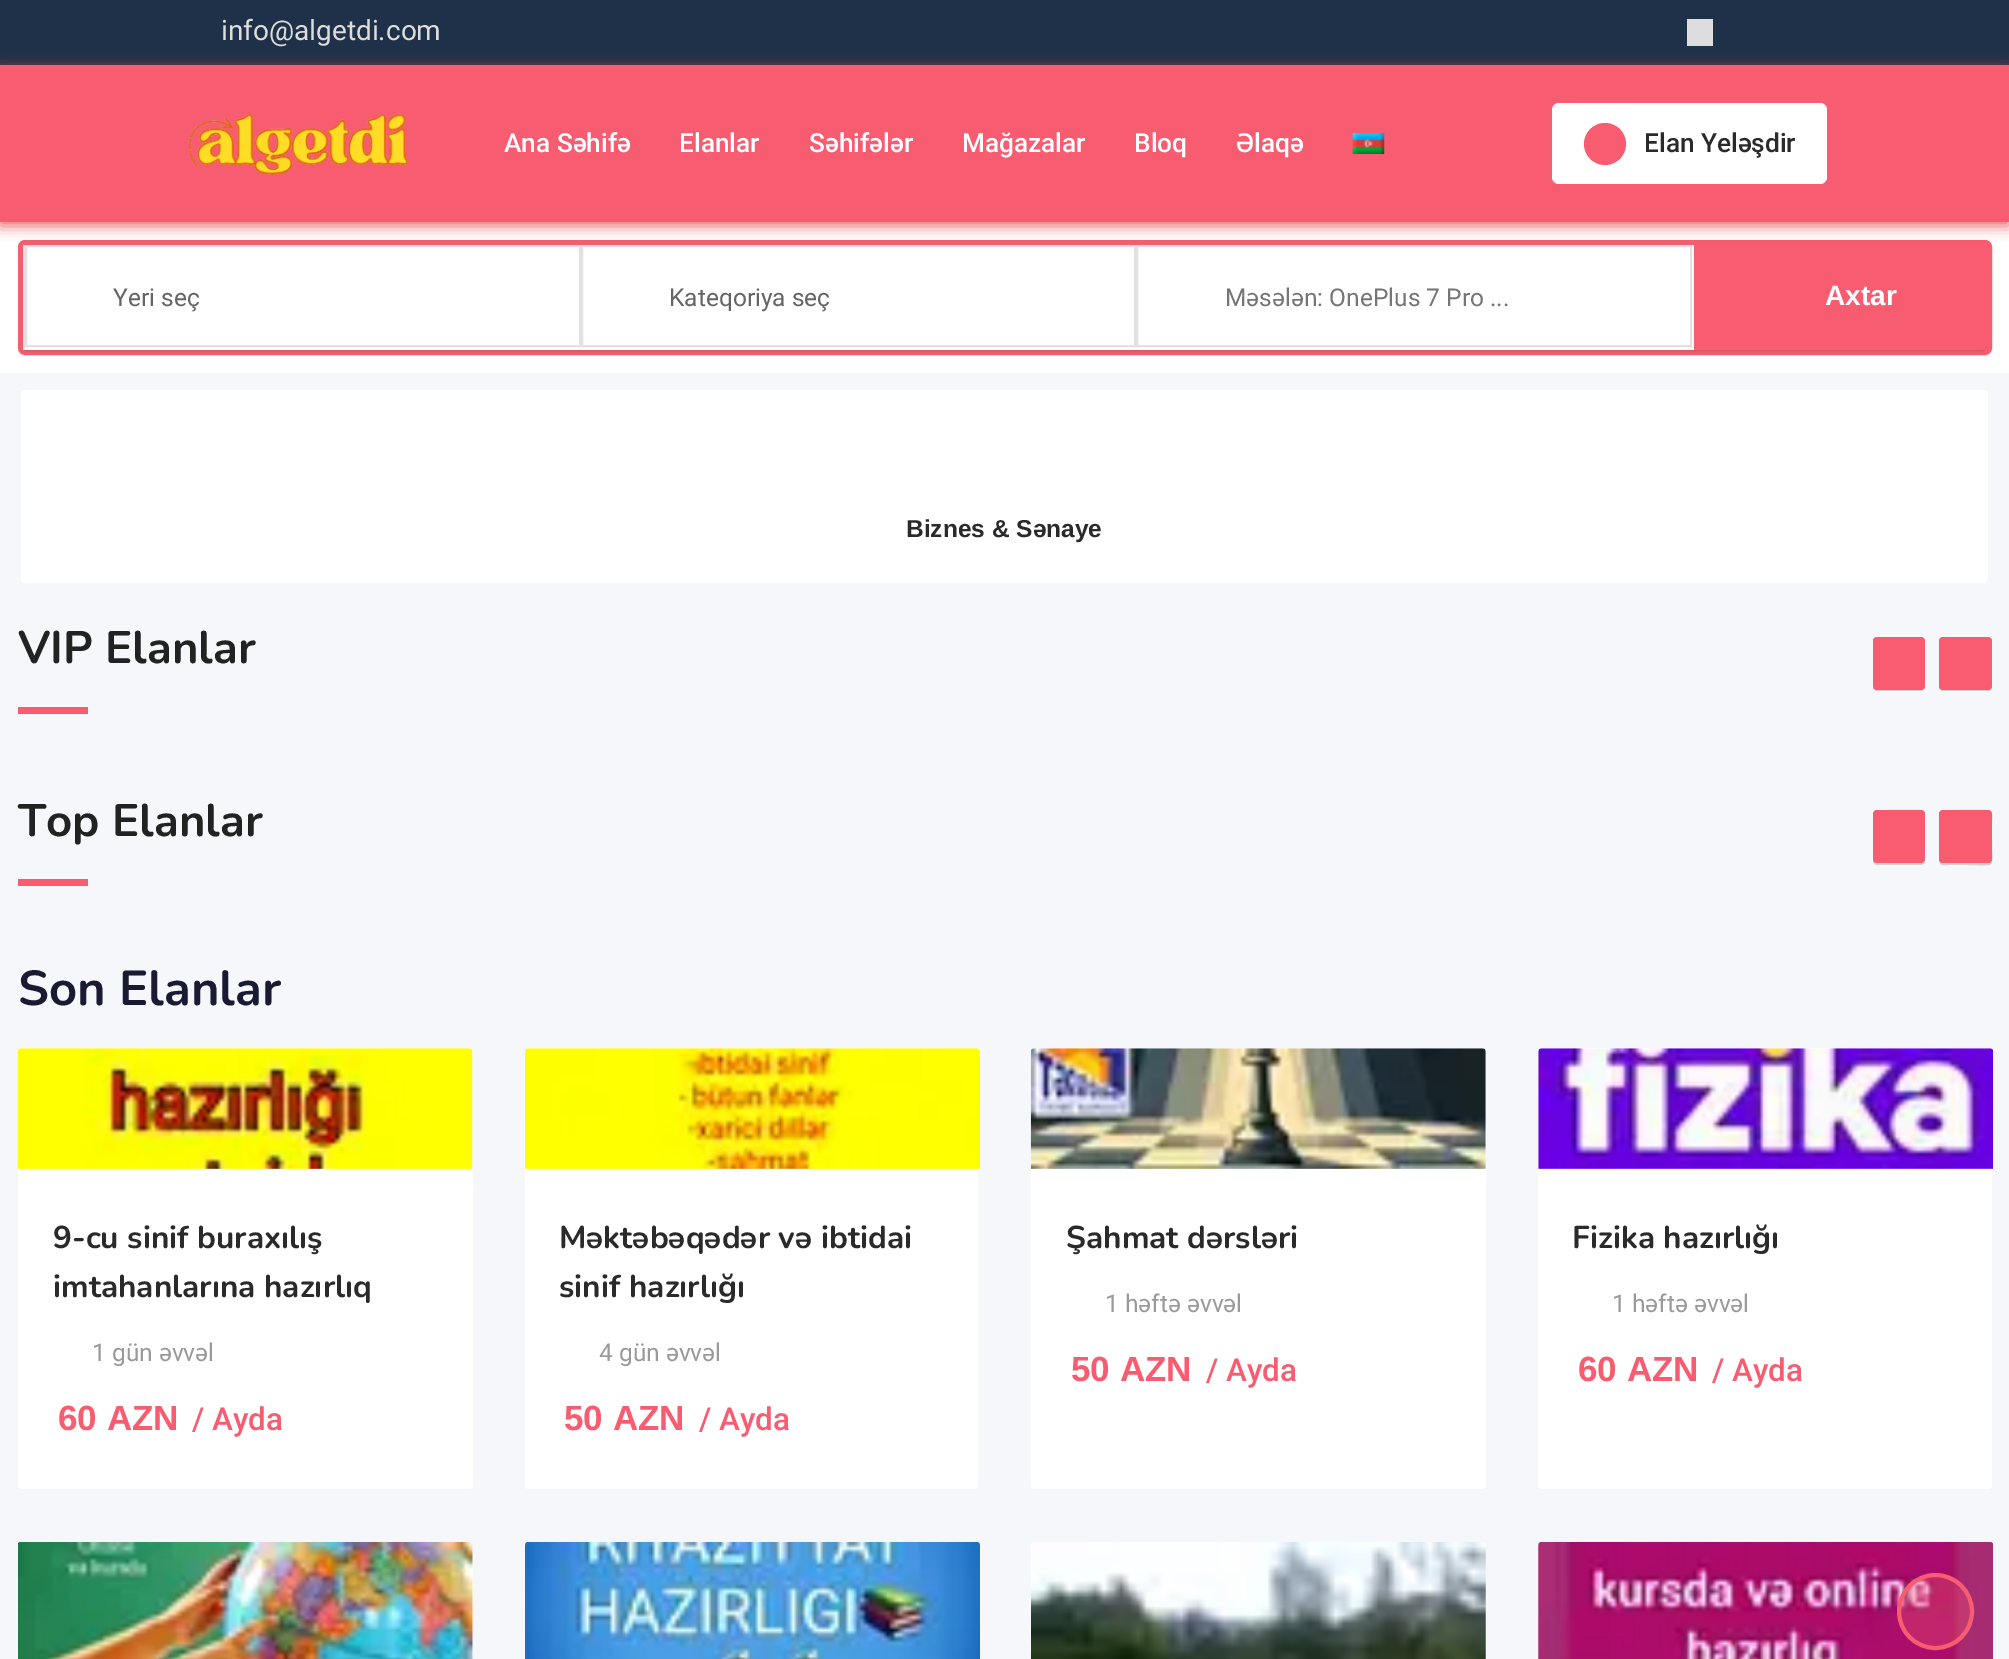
%!PS-Adobe-3.0
%%BoundingBox: 0 0 2009 1659
%%LanguageLevel: 3
%%Pages: 1
%%EndComments
%%BeginProlog
/setalpha { dup .setfillconstantalpha .setstrokeconstantalpha } def
/rrect { 5 dict begin { /r /h /w /y /x } { exch def } forall
  x r add y moveto x w add y 2 copy h add r arct x w add y h add x 1 index r arct
  x y h add x y r arct x y 2 copy exch w add exch r arct closepath end } def
/softshadow { 12 dict begin { /a /b /q /h /w /y /x } { exch def } forall gsave /was 0 def
  9 -2 -9 { dup b mul 4 div /e exch def 1 sub .425 mul 2.718 exch exp 1 add a .99 .min exch div /now exch def
    1 1 now sub 1 was sub div sub setalpha /was now def
    w h .min e 2 mul add 0 gt { x e sub y e sub w e 2 mul add h e 2 mul add
      q e add b .6 mul add w h .min 2 div e add .min 0 .max rrect fill } if } for grestore end } def
/drawimage { 5 dict begin { /h /w /y /x /name } { exch def } forall
  gsave x y translate w h scale
  w h 8 [w 0 0 h 0 0] name (r) file false 3 colorimage grestore end } def
%%EndProlog
%%BeginSetup
<< /PageSize [2009 1659] /PageUsesTransparency true >> setpagedevice
%%EndSetup
%%Page: 1 1
0 .pushpdf14devicefilter
0 1659 translate 1 -1 scale
4 setmiterlimit
0.118 0.192 0.282 setrgbcolor
0 0 2009 1659 rectfill
0.867 setgray
1687 19 26 27 rectfill
1 setgray
0 222 2009 151 rectfill
0.973 0.361 0.439 setrgbcolor
5 setlinewidth
20.5 242.5 1969 110 4.5 rrect stroke
0 setgray
23 247 1963 105 4 1 0.1 softshadow
1 setgray
23 245 1963 105 4 rrect fill
0.882 setgray
23 245 2 105 rectfill
2 setlinewidth
26 246 554 100 rectstroke
582 246 553 100 rectstroke
1137 246 554 100 rectstroke
0.973 0.361 0.439 setrgbcolor
1694 245 293 105 rectfill
0.894 0.239 0.251 setrgbcolor
0 68 2009 158 0 7 0.8 softshadow
0.973 0.361 0.439 setrgbcolor
0 65 2009 157 rectfill
(images/1.raw) 188 113 221 62 drawimage
(images/2.raw) 1352 133 33 21 drawimage
1 setgray
1552 103 275 81 7 rrect fill
0.973 0.361 0.439 setrgbcolor
newpath 1605 144 21 0 360 arc closepath fill
0.961 0.969 0.98 setrgbcolor
0 373 2009 1286 rectfill
1 setgray
21 390 1967 193 4 rrect fill
0.973 0.361 0.439 setrgbcolor
18 707 70 7 rectfill
0.808 0.812 0.824 setrgbcolor
newpath 1873 688 moveto 1874 690 1875 691 1877 691 curveto 1921 691 lineto 1923 691 1925 689 1925 687 curveto 1925 686 lineto 1925 688 1923 690 1922 690 curveto 1876 690 lineto 1875 690 1874 689 1873 688 curveto closepath fill
0.973 0.361 0.439 setrgbcolor
1873 637 52 53 4 rrect fill
0.808 0.812 0.824 setrgbcolor
newpath 1939 686 moveto 1939 687 lineto 1939 689 1941 691 1943 691 curveto 1988 691 lineto 1990 691 1992 689 1992 687 curveto 1992 643 lineto 1992 641 lineto 1992 686 lineto 1992 688 1990 690 1988 690 curveto 1942 690 lineto 1941 690 1939 688 1939 686 curveto closepath fill
0.973 0.361 0.439 setrgbcolor
1939 637 53 53 4 rrect fill
18 879 70 7 rectfill
0.808 0.812 0.824 setrgbcolor
newpath 1873 861 moveto 1873 863 1875 865 1877 865 curveto 1921 865 lineto 1923 865 1925 863 1925 861 curveto 1925 859 lineto 1925 861 1923 863 1922 863 curveto 1876 863 lineto 1875 863 1874 862 1873 861 curveto closepath fill
0.973 0.361 0.439 setrgbcolor
1873 810 52 53 4 rrect fill
0.808 0.812 0.824 setrgbcolor
newpath 1939 859 moveto 1939 867 1944 865 1950 865 curveto 1966 865 lineto 1998 865 1992 871 1992 838 curveto 1992 824 lineto 1992 823 1993 816 1992 814 curveto 1992 859 lineto 1992 861 1990 863 1988 863 curveto 1942 863 lineto 1941 863 1939 861 1939 859 curveto closepath fill
0.973 0.361 0.439 setrgbcolor
1939 810 53 53 4 rrect fill
1 setgray
18 1048 455 441 4 rrect fill
(images/3.raw) 17 1048 456 121 drawimage
525 1048 453 441 4 rrect fill
(images/4.raw) 525 1048 455 121 drawimage
1031 1048 455 441 4 rrect fill
(images/5.raw) 1030 1048 456 121 drawimage
1538 1048 454 441 4 rrect fill
(images/6.raw) 1538 1048 455 121 drawimage
18 1542 455 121 4 rrect fill
(images/7.raw) 18 1542 455 117 drawimage
(images/8.raw) 525 1542 455 117 drawimage
(images/9.raw) 1031 1542 455 117 drawimage
(images/10.raw) 1538 1542 455 117 drawimage
0.3 setalpha
0.973 0.361 0.439 setrgbcolor
newpath 1935.5 1611.5 36.5 0 360 arc closepath fill
1 setalpha
4 setlinewidth
newpath 1935.5 1611.5 36.5 0 360 arc closepath stroke
/Roboto-Regular [28 0 0 -28 0 0] selectfont
0.867 setgray
221 40 moveto (info@algetdi.com) show
/Roboto-Medium [26.25 0 0 -26.25 0 0] selectfont
1 setgray
504 152 moveto (Ana Səhifə) show
679 152 moveto (Elanlar) show
809 152 moveto (Səhifələr) show
962 152 moveto (Mağazalar) show
1134 152 moveto (Bloq) show
1236 152 moveto (Əlaqə) show
0.165 setgray
1644 152 moveto (Elan Yeləşdir) show
/Roboto-Regular [24.5 0 0 -24.5 0 0] selectfont
0.392 setgray
113 306 moveto (Yeri seç) show
669 306 moveto (Kateqoriya seç) show
0.459 setgray
1225 306 moveto (Məsələn: OnePlus 7 Pro ...) show
/LiberationSans-Bold [28 0 0 -28 0 0] selectfont
1 setgray
1825 305 moveto (Axtar) show
/LiberationSans-Bold [24.5 0 0 -24.5 0 0] selectfont
0.165 setgray
906 537 moveto (Biznes & Sənaye) show
/Nunito-ExtraLight [45.5 0 0 -45.5 0 0] selectfont
0.133 setgray
18 663 moveto (VIP Elanlar) show
18 836 moveto (Top Elanlar) show
/Nunito-ExtraLight [49 0 0 -49 0 0] selectfont
0.094 0.106 0.192 setrgbcolor
18 1005 moveto (Son Elanlar) show
/Nunito-ExtraLight [31.5 0 0 -31.5 0 0] selectfont
0.165 setgray
53 1248 moveto (9-cu sinif buraxılış) show
53 1297 moveto (imtahanlarına hazırlıq) show
/Roboto-Regular [24.5 0 0 -24.5 0 0] selectfont
0.6 setgray
92 1361 moveto (1 gün əvvəl) show
/LiberationSans-Bold [35 0 0 -35 0 0] selectfont
0.973 0.361 0.439 setrgbcolor
58 1430 moveto (60 AZN) show
/Roboto-Medium [31.5 0 0 -31.5 0 0] selectfont
192 1430 moveto (/ Ayda) show
/Nunito-ExtraLight [31.5 0 0 -31.5 0 0] selectfont
0.165 setgray
559 1248 moveto (Məktəbəqədər və ibtidai) show
559 1297 moveto (sinif hazırlığı) show
/Roboto-Regular [24.5 0 0 -24.5 0 0] selectfont
0.6 setgray
599 1361 moveto (4 gün əvvəl) show
/LiberationSans-Bold [35 0 0 -35 0 0] selectfont
0.973 0.361 0.439 setrgbcolor
564 1430 moveto (50 AZN) show
/Roboto-Medium [31.5 0 0 -31.5 0 0] selectfont
699 1430 moveto (/ Ayda) show
/Nunito-ExtraLight [31.5 0 0 -31.5 0 0] selectfont
0.165 setgray
1066 1248 moveto (Şahmat dərsləri) show
/Roboto-Regular [24.5 0 0 -24.5 0 0] selectfont
0.6 setgray
1105 1312 moveto (1 həftə əvvəl) show
/LiberationSans-Bold [35 0 0 -35 0 0] selectfont
0.973 0.361 0.439 setrgbcolor
1071 1381 moveto (50 AZN) show
/Roboto-Medium [31.5 0 0 -31.5 0 0] selectfont
1206 1381 moveto (/ Ayda) show
/Nunito-ExtraLight [31.5 0 0 -31.5 0 0] selectfont
0.165 setgray
1572 1248 moveto (Fizika hazırlığı) show
/Roboto-Regular [24.5 0 0 -24.5 0 0] selectfont
0.6 setgray
1612 1312 moveto (1 həftə əvvəl) show
/LiberationSans-Bold [35 0 0 -35 0 0] selectfont
0.973 0.361 0.439 setrgbcolor
1578 1381 moveto (60 AZN) show
/Roboto-Medium [31.5 0 0 -31.5 0 0] selectfont
1712 1381 moveto (/ Ayda) show
.poppdf14devicefilter showpage
%%EOF
